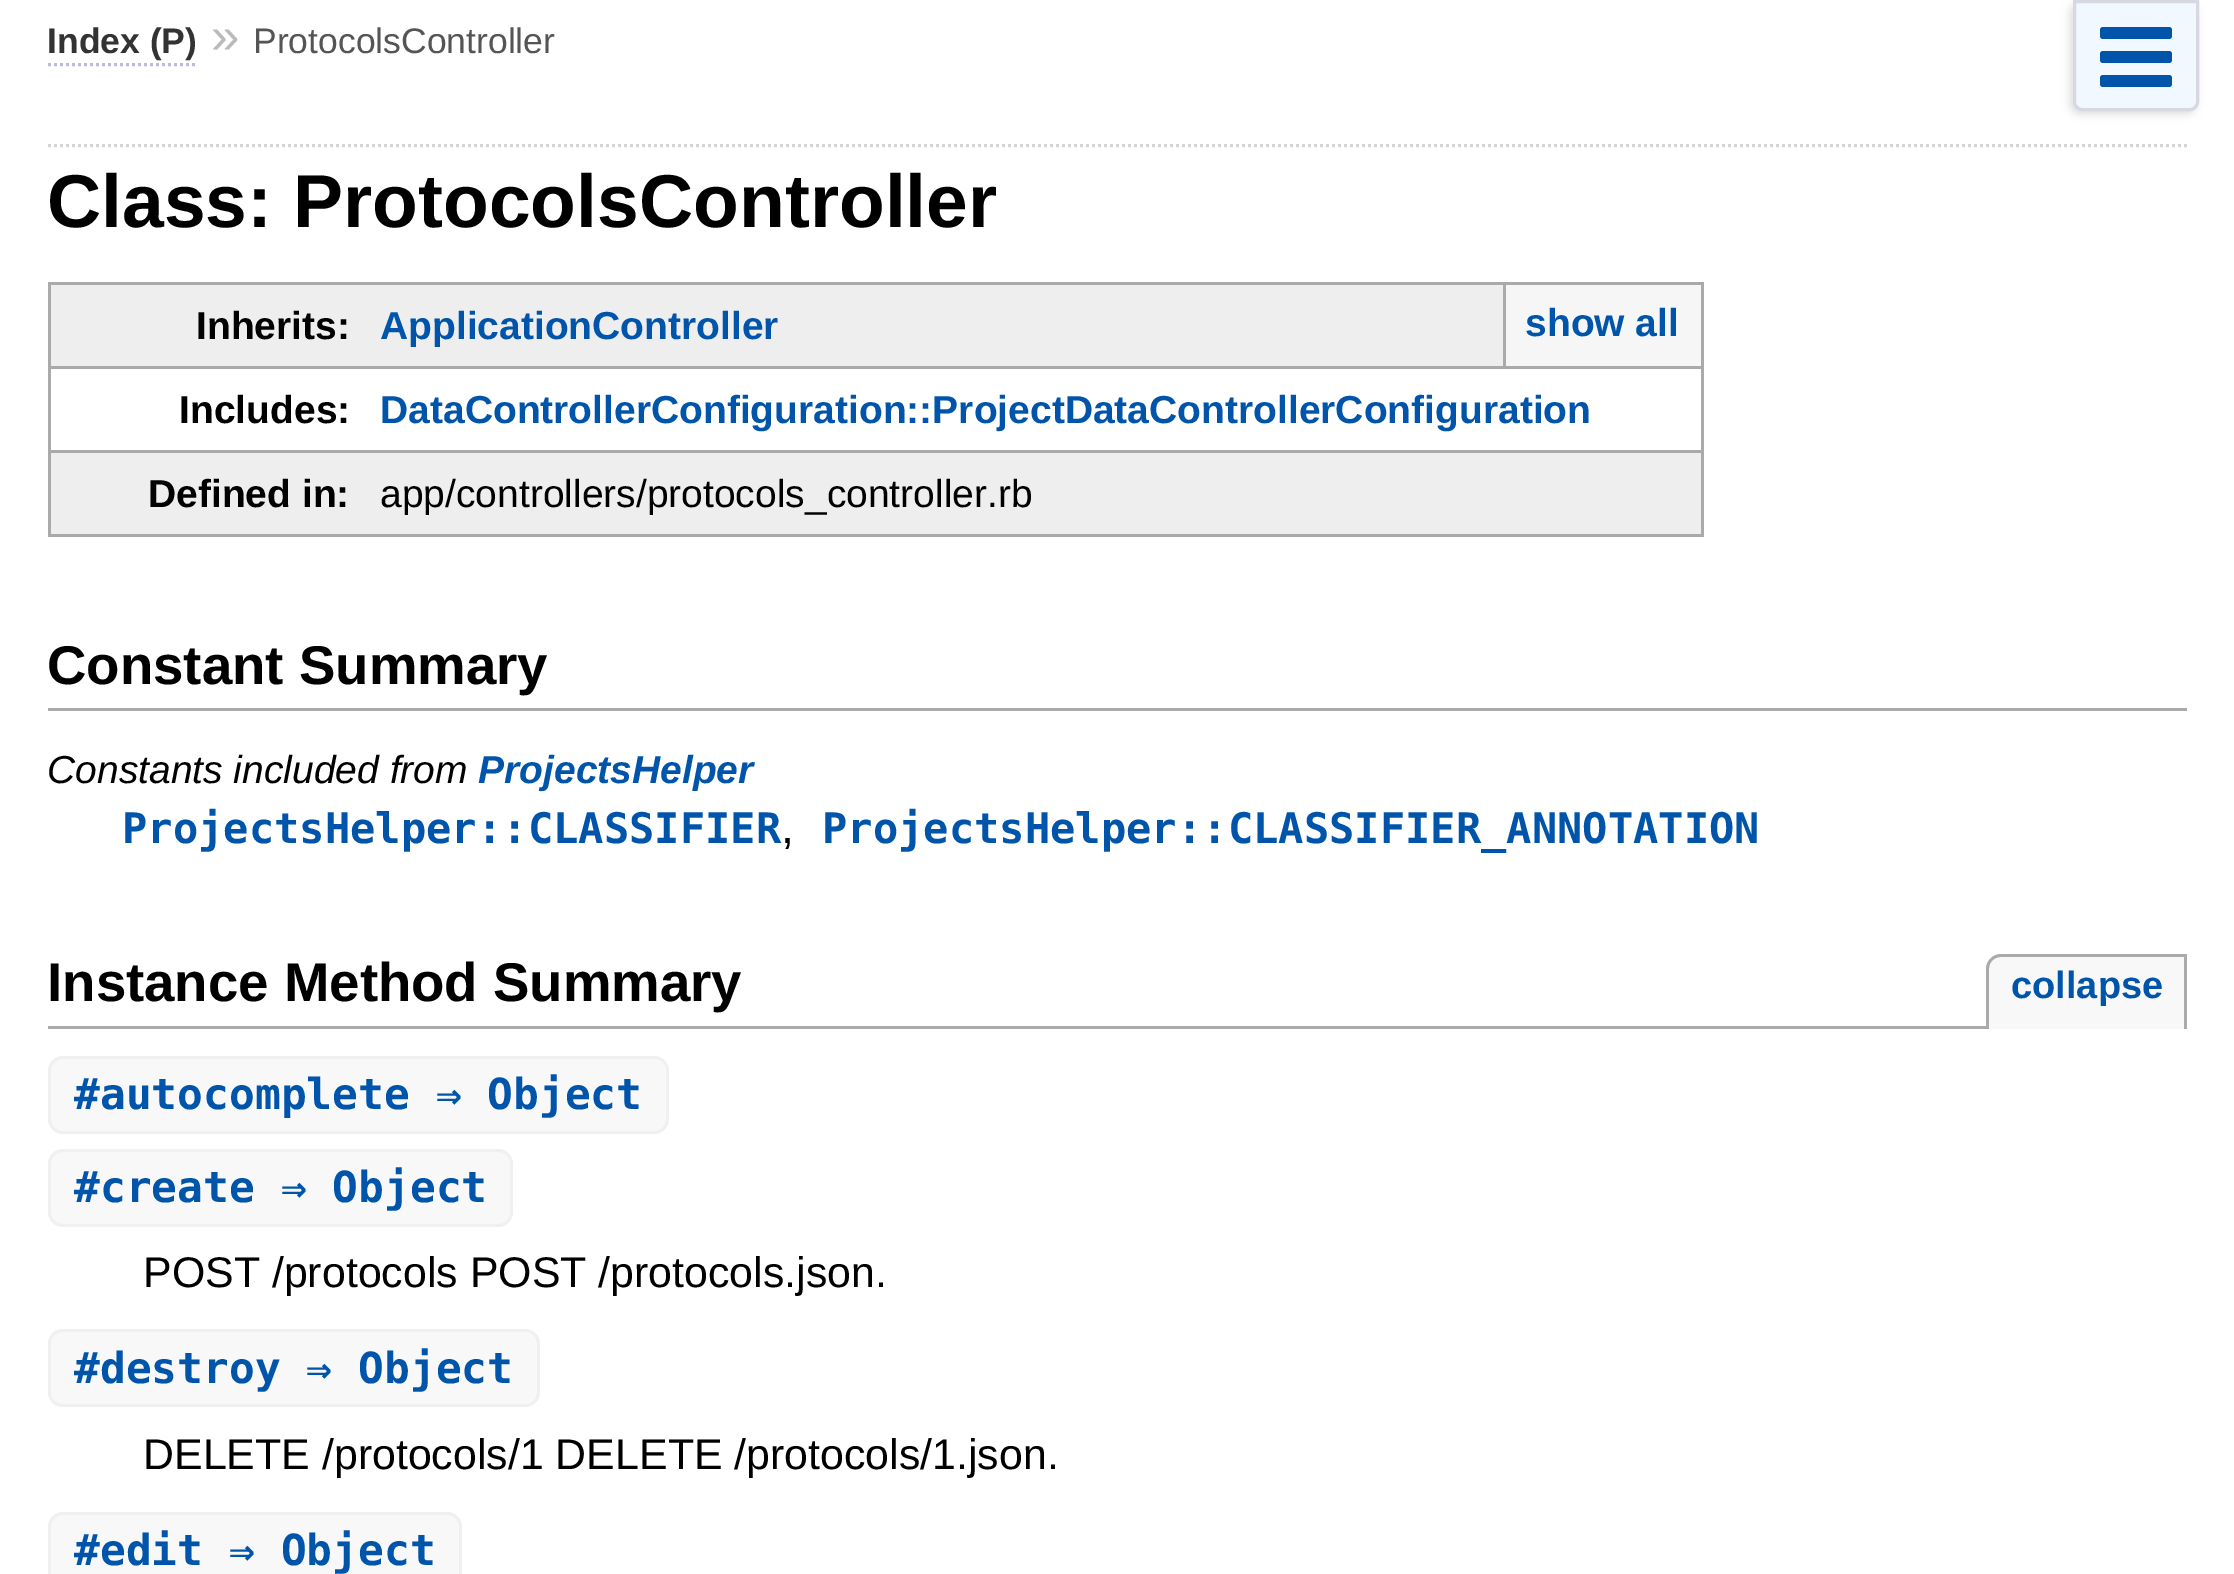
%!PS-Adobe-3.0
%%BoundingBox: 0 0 2234 1574
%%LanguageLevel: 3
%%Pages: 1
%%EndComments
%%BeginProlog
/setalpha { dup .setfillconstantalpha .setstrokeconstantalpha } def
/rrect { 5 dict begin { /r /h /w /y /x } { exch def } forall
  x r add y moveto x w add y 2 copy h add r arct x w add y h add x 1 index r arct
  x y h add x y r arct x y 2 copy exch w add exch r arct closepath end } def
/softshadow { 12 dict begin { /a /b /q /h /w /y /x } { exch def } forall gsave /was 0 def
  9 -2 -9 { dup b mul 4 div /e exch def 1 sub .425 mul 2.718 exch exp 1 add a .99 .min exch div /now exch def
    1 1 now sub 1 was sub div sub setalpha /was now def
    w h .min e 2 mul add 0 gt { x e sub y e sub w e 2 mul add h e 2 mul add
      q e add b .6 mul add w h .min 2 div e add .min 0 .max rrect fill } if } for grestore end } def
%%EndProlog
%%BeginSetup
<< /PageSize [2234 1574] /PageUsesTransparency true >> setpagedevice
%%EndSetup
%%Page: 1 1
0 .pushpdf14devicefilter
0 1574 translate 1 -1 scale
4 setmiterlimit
1 setgray
0 0 2234 1574 rectfill
0.733 0.733 0.867 setrgbcolor
3 setlinewidth
[3 3] 0 setdash
newpath 48 64.5 moveto 198 64.5 lineto stroke
0.867 setgray
2070 3 126 111 9 4.5 1 softshadow
0.945 0.973 1 setrgbcolor
newpath 2074.5 1.5 moveto 2197.5 1.5 lineto 2197.5 102 lineto 2197.5 106 2194 109.5 2190 109.5 curveto 2082 109.5 lineto 2078 109.5 2074.5 106 2074.5 102 curveto closepath gsave fill grestore
0.847 0.847 0.898 setrgbcolor
[] 0 setdash
stroke
0 0.333 0.667 setrgbcolor
2100 27 72 12 3 rrect fill
2100 51 72 12 3 rrect fill
2100 75 72 12 3 rrect fill
0.835 setgray
[3 3] 0 setdash
newpath 48 145.5 moveto 2187 145.5 lineto stroke
0.933 setgray
51 285 1452 81 rectfill
0.667 setgray
48 282 1656 3 rectfill
48 282 3 84 rectfill
48 366 1656 3 rectfill
48 450 1656 3 rectfill
1701 282 3 255 rectfill
0.965 setgray
1506 285 195 81 rectfill
0.667 setgray
1503 285 3 81 rectfill
48 366 3 84 rectfill
0.933 setgray
51 453 1650 81 rectfill
0.667 setgray
48 534 333 3 rectfill
48 450 3 87 rectfill
381 534 1323 3 rectfill
48 708 2139 3 rectfill
48 1026 1938 3 rectfill
0.973 setgray
newpath 2001 954 moveto 2187 954 lineto 2187 1029 lineto 1986 1029 lineto 1986 969 lineto 1986 960.5 1992.5 954 2001 954 curveto closepath fill
0.667 setgray
newpath 2001 954 moveto 2187 954 lineto 2187 1029 lineto 1986 1029 lineto 1986 969 lineto 1986 961 1993 954 2001 954 curveto closepath 2001 957 moveto 2184 957 lineto 2184 1029 lineto 1989 1029 lineto 1989 969 lineto 1989 962 1994 957 2001 957 curveto closepath eofill
0.973 setgray
newpath 63 1056 moveto 99 1056 lineto 99 1134 lineto 63 1134 lineto 54.5 1134 48 1127.5 48 1119 curveto 48 1071 lineto 48 1062.5 54.5 1056 63 1056 curveto closepath fill
0.941 setgray
newpath 63 1056 moveto 99 1056 lineto 99 1134 lineto 63 1134 lineto 55 1134 48 1127 48 1119 curveto 48 1071 lineto 48 1063 55 1056 63 1056 curveto closepath 63 1059 moveto 99 1059 lineto 99 1131 lineto 63 1131 lineto 56 1131 51 1126 51 1119 curveto 51 1071 lineto 51 1064 56 1059 63 1059 curveto closepath eofill
0.973 setgray
99 1059 312 72 rectfill
0.941 setgray
99 1056 312 3 rectfill
99 1131 312 3 rectfill
0.973 setgray
newpath 411 1056 moveto 654 1056 lineto 662.5 1056 669 1062.5 669 1071 curveto 669 1119 lineto 669 1127.5 662.5 1134 654 1134 curveto 411 1134 lineto closepath fill
0.941 setgray
newpath 411 1056 moveto 654 1056 lineto 662 1056 669 1063 669 1071 curveto 669 1119 lineto 669 1127 662 1134 654 1134 curveto 411 1134 lineto closepath 411 1059 moveto 654 1059 lineto 661 1059 666 1064 666 1071 curveto 666 1119 lineto 666 1126 661 1131 654 1131 curveto 411 1131 lineto closepath eofill
0.973 setgray
newpath 63 1149 moveto 99 1149 lineto 99 1227 lineto 63 1227 lineto 54.5 1227 48 1220.5 48 1212 curveto 48 1164 lineto 48 1155.5 54.5 1149 63 1149 curveto closepath fill
0.941 setgray
newpath 63 1149 moveto 99 1149 lineto 99 1227 lineto 63 1227 lineto 55 1227 48 1220 48 1212 curveto 48 1164 lineto 48 1156 55 1149 63 1149 curveto closepath 63 1152 moveto 99 1152 lineto 99 1224 lineto 63 1224 lineto 56 1224 51 1219 51 1212 curveto 51 1164 lineto 51 1157 56 1152 63 1152 curveto closepath eofill
0.973 setgray
99 1152 156 72 rectfill
0.941 setgray
99 1149 156 3 rectfill
99 1224 156 3 rectfill
0.973 setgray
newpath 255 1149 moveto 498 1149 lineto 506.5 1149 513 1155.5 513 1164 curveto 513 1212 lineto 513 1220.5 506.5 1227 498 1227 curveto 255 1227 lineto closepath fill
0.941 setgray
newpath 255 1149 moveto 498 1149 lineto 506 1149 513 1156 513 1164 curveto 513 1212 lineto 513 1220 506 1227 498 1227 curveto 255 1227 lineto closepath 255 1152 moveto 498 1152 lineto 505 1152 510 1157 510 1164 curveto 510 1212 lineto 510 1219 505 1224 498 1224 curveto 255 1224 lineto closepath eofill
0.973 setgray
newpath 63 1329 moveto 99 1329 lineto 99 1407 lineto 63 1407 lineto 54.5 1407 48 1400.5 48 1392 curveto 48 1344 lineto 48 1335.5 54.5 1329 63 1329 curveto closepath fill
0.941 setgray
newpath 63 1329 moveto 99 1329 lineto 99 1407 lineto 63 1407 lineto 55 1407 48 1400 48 1392 curveto 48 1344 lineto 48 1336 55 1329 63 1329 curveto closepath 63 1332 moveto 99 1332 lineto 99 1404 lineto 63 1404 lineto 56 1404 51 1399 51 1392 curveto 51 1344 lineto 51 1337 56 1332 63 1332 curveto closepath eofill
0.973 setgray
99 1332 180 72 rectfill
0.941 setgray
99 1329 180 3 rectfill
99 1404 180 3 rectfill
0.973 setgray
newpath 279 1329 moveto 525 1329 lineto 533.5 1329 540 1335.5 540 1344 curveto 540 1392 lineto 540 1400.5 533.5 1407 525 1407 curveto 279 1407 lineto closepath fill
0.941 setgray
newpath 279 1329 moveto 525 1329 lineto 533 1329 540 1336 540 1344 curveto 540 1392 lineto 540 1400 533 1407 525 1407 curveto 279 1407 lineto closepath 279 1332 moveto 525 1332 lineto 532 1332 537 1337 537 1344 curveto 537 1392 lineto 537 1399 532 1404 525 1404 curveto 279 1404 lineto closepath eofill
0.973 setgray
newpath 63 1512 moveto 99 1512 lineto 99 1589 lineto 63 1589 lineto 54.5 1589 48 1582.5 48 1574 curveto 48 1527 lineto 48 1518.5 54.5 1512 63 1512 curveto closepath fill
0.941 setgray
newpath 63 1512 moveto 99 1512 lineto 99 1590 lineto 63 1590 lineto 55 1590 48 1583 48 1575 curveto 48 1527 lineto 48 1519 55 1512 63 1512 curveto closepath 63 1515 moveto 99 1515 lineto 99 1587 lineto 63 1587 lineto 56 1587 51 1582 51 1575 curveto 51 1527 lineto 51 1520 56 1515 63 1515 curveto closepath eofill
0.973 setgray
99 1515 105 59 rectfill
0.941 setgray
99 1512 105 3 rectfill
0.973 setgray
newpath 204 1512 moveto 447 1512 lineto 455.5 1512 462 1518.5 462 1527 curveto 462 1574 lineto 462 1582.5 455.5 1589 447 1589 curveto 204 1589 lineto closepath fill
0.941 setgray
newpath 204 1512 moveto 447 1512 lineto 455 1512 462 1519 462 1527 curveto 462 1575 lineto 462 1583 455 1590 447 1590 curveto 204 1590 lineto closepath 204 1515 moveto 447 1515 lineto 454 1515 459 1520 459 1527 curveto 459 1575 lineto 459 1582 454 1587 447 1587 curveto 204 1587 lineto closepath eofill
/LiberationSans-Bold [35.5 0 0 -35.5 0 0] selectfont
0.2 setgray
47 53 moveto (Index \(P\)) show
/LiberationSans-Regular [51 0 0 -51 0 0] selectfont
0.733 setgray
211 53 moveto (») show
/LiberationSans-Regular [35.5 0 0 -35.5 0 0] selectfont
0.333 setgray
253 53 moveto (ProtocolsController) show
/LiberationSans-Bold [75 0 0 -75 0 0] selectfont
0 setgray
47 227 moveto (Class: ProtocolsController) show
/LiberationSans-Bold [39 0 0 -39 0 0] selectfont
196 339 moveto (Inherits:) show
0 0.333 0.667 setrgbcolor
380 339 moveto (ApplicationController) show
1525 336 moveto (show all) show
0 setgray
179 423 moveto (Includes:) show
0 0.333 0.667 setrgbcolor
380 423 moveto (DataControllerConfiguration::ProjectDataControllerConfiguration) show
0 setgray
148 507 moveto (Defined in:) show
/LiberationSans-Regular [39 0 0 -39 0 0] selectfont
380 507 moveto (app/controllers/protocols_controller.rb) show
/LiberationSans-Bold [54.6 0 0 -54.6 0 0] selectfont
47 684 moveto (Constant Summary) show
/LiberationSans-Italic [39 0 0 -39 0 0] selectfont
47 783 moveto (Constants included from) show
/LiberationSans-BoldItalic [39 0 0 -39 0 0] selectfont
0 0.333 0.667 setrgbcolor
478 783 moveto (ProjectsHelper) show
/DejaVuSansMono-Bold [42.1 0 0 -42.1 0 0] selectfont
122 843 moveto (ProjectsHelper::CLASSIFIER) show
/LiberationSans-Regular [47 0 0 -47 0 0] selectfont
0 setgray
781 843 moveto (,) show
/DejaVuSansMono-Bold [42.1 0 0 -42.1 0 0] selectfont
0 0.333 0.667 setrgbcolor
822 843 moveto (ProjectsHelper::CLASSIFIER_ANNOTATION) show
/LiberationSans-Bold [54.6 0 0 -54.6 0 0] selectfont
0 setgray
47 1001 moveto (Instance Method Summary) show
/LiberationSans-Bold [38 0 0 -38 0 0] selectfont
0 0.333 0.667 setrgbcolor
2011 998 moveto (collapse) show
/DejaVuSansMono-Bold [42.9 0 0 -42.9 0 0] selectfont
74 1109 moveto (#autocomplete ⇒ Object) show
74 1202 moveto (#create ⇒ Object) show
/LiberationSans-Regular [42.9 0 0 -42.9 0 0] selectfont
0 setgray
143 1287 moveto (POST /protocols POST /protocols.json.) show
/DejaVuSansMono-Bold [42.9 0 0 -42.9 0 0] selectfont
0 0.333 0.667 setrgbcolor
74 1383 moveto (#destroy ⇒ Object) show
/LiberationSans-Regular [42.9 0 0 -42.9 0 0] selectfont
0 setgray
143 1469 moveto (DELETE /protocols/1 DELETE /protocols/1.json.) show
/DejaVuSansMono-Bold [42.9 0 0 -42.9 0 0] selectfont
0 0.333 0.667 setrgbcolor
74 1565 moveto (#edit ⇒ Object) show
.poppdf14devicefilter showpage
%%EOF
